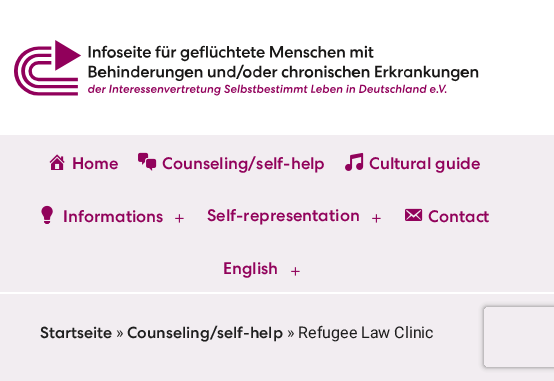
%!PS-Adobe-3.0
%%BoundingBox: 0 0 554 381
%%LanguageLevel: 3
%%Pages: 1
%%EndComments
%%BeginProlog
/setalpha { dup .setfillconstantalpha .setstrokeconstantalpha } def
/rrect { 5 dict begin { /r /h /w /y /x } { exch def } forall
  x r add y moveto x w add y 2 copy h add r arct x w add y h add x 1 index r arct
  x y h add x y r arct x y 2 copy exch w add exch r arct closepath end } def
/softshadow { 12 dict begin { /a /b /q /h /w /y /x } { exch def } forall gsave /was 0 def
  9 -2 -9 { dup b mul 4 div /e exch def 1 sub .425 mul 2.718 exch exp 1 add a .99 .min exch div /now exch def
    1 1 now sub 1 was sub div sub setalpha /was now def
    w h .min e 2 mul add 0 gt { x e sub y e sub w e 2 mul add h e 2 mul add
      q e add b .6 mul add w h .min 2 div e add .min 0 .max rrect fill } if } for grestore end } def
/drawimage { 5 dict begin { /h /w /y /x /name } { exch def } forall
  gsave x y translate w h scale
  w h 8 [w 0 0 h 0 0] name (r) file false 3 colorimage grestore end } def
%%EndProlog
%%BeginSetup
<< /PageSize [554 381] /PageUsesTransparency true >> setpagedevice
%%EndSetup
%%Page: 1 1
0 .pushpdf14devicefilter
0 381 translate 1 -1 scale
4 setmiterlimit
0.949 0.929 0.945 setrgbcolor
0 0 554 381 rectfill
1 setgray
0 0 554 135 rectfill
(images/1.raw) 14 40 465 56 drawimage
0 292 554 2 rectfill
(images/2.raw) 49 154 16 16 drawimage
(images/3.raw) 138 152 19 19 drawimage
(images/4.raw) 345 152 19 19 drawimage
(images/5.raw) 41 205 12 19 drawimage
(images/6.raw) 175 214 9 9 drawimage
(images/6.raw) 372 214 9 9 drawimage
(images/7.raw) 405 208 18 13 drawimage
(images/6.raw) 291 267 9 9 drawimage
gsave
newpath 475 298 moveto 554 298 lineto 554 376 lineto 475 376 lineto closepath 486 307 moveto 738 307 lineto 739 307 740 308 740 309 curveto 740 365 lineto 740 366 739 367 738 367 curveto 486 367 lineto 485 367 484 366 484 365 curveto 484 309 lineto 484 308 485 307 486 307 curveto closepath eoclip newpath
0.502 setgray
484 307 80 60 2 2.5 1 softshadow
grestore
/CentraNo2-Medium [16.75 0 0 -16.75 0 0] selectfont
0.569 0.008 0.357 setrgbcolor
72 169 moveto (Home) show
162 169 moveto (Counseling/self-help) show
369 169 moveto (Cultural guide) show
63 222 moveto (Informations) show
207 221 moveto (Self-representation) show
428 222 moveto (Contact) show
223 274 moveto (English) show
/CentraNo2-Medium [16 0 0 -16 0 0] selectfont
0.118 setgray
40 338 moveto (Startseite) show
/Roboto-Regular [16 0 0 -16 0 0] selectfont
116 338 moveto (») show
/CentraNo2-Medium [16 0 0 -16 0 0] selectfont
127 338 moveto (Counseling/self-help) show
/Roboto-Regular [16 0 0 -16 0 0] selectfont
287 338 moveto (» Refugee Law Clinic) show
.poppdf14devicefilter showpage
%%EOF
